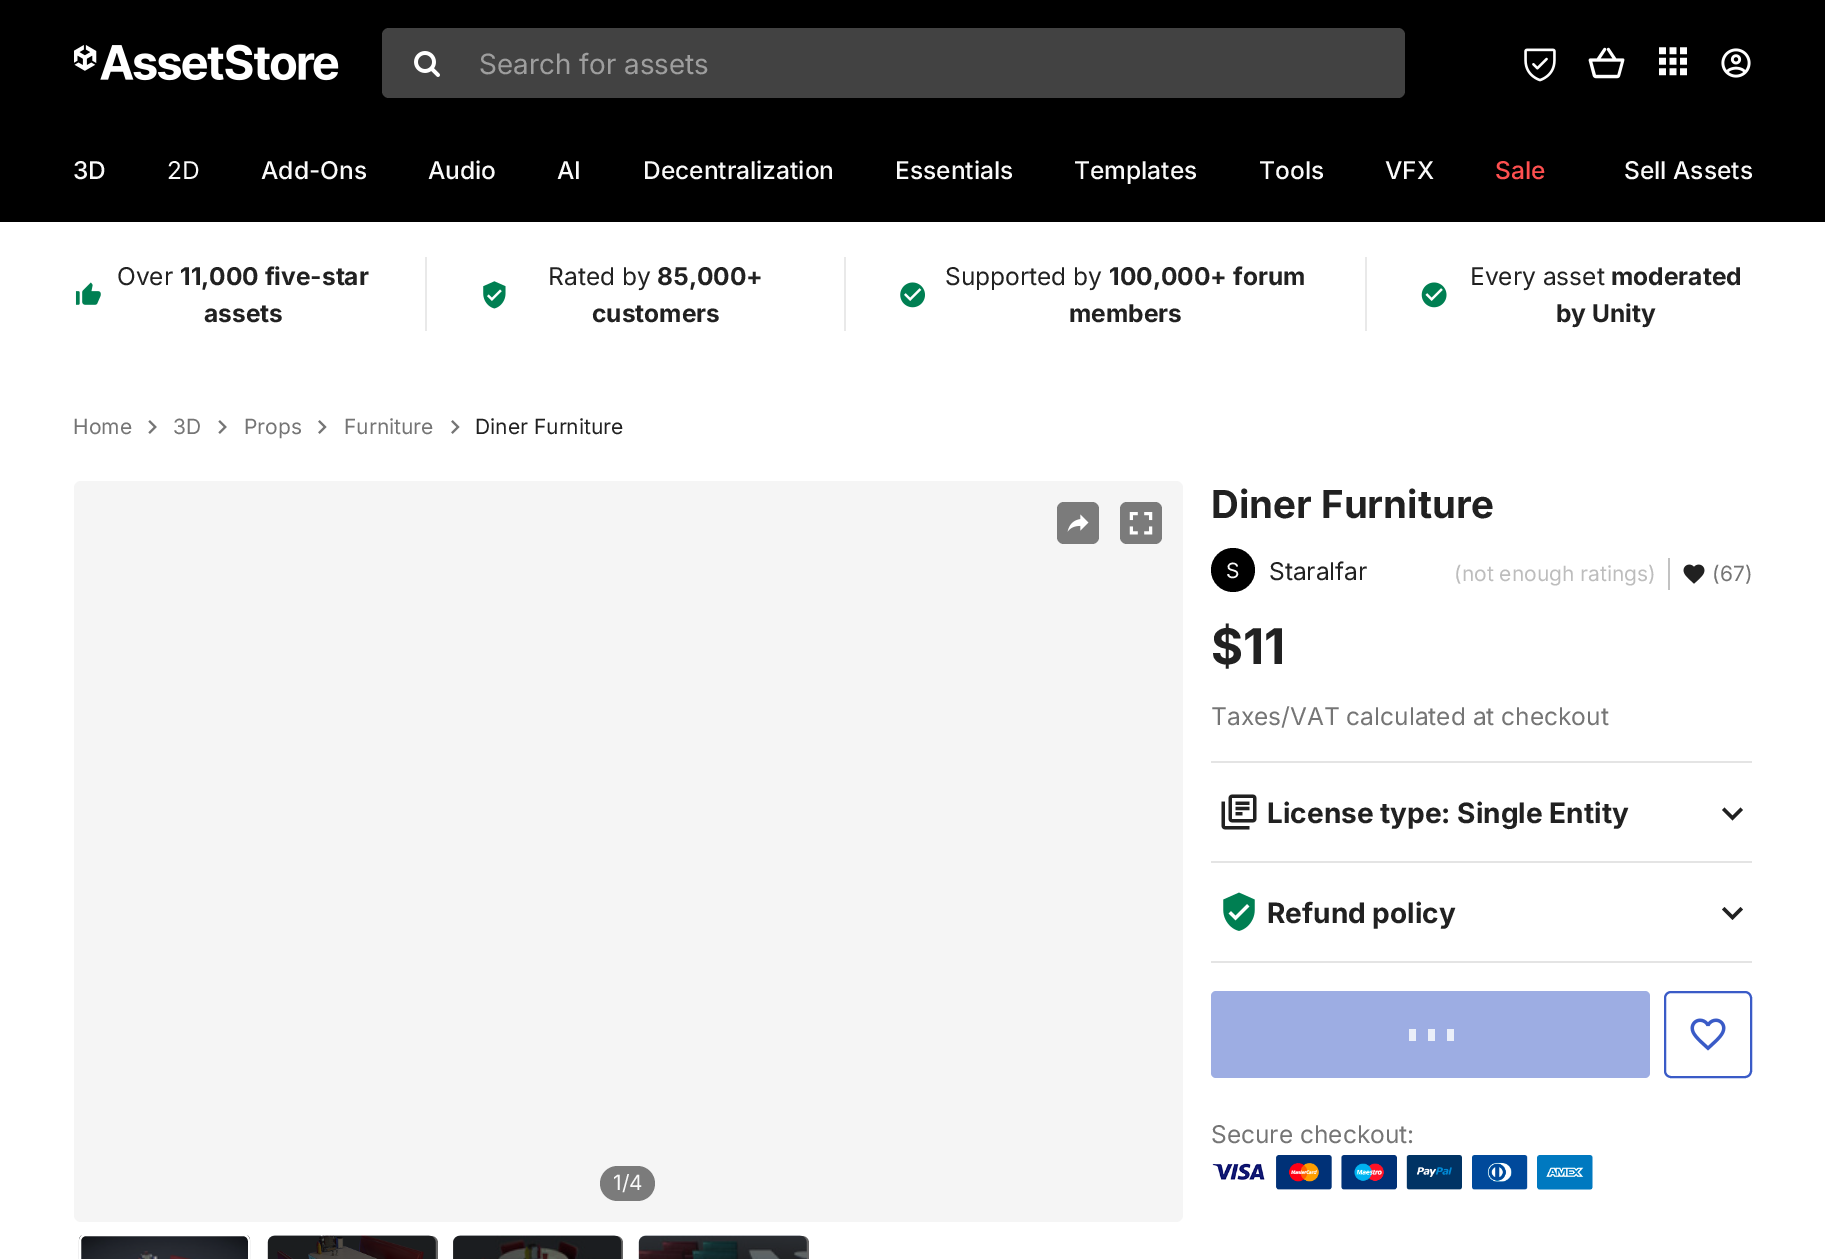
%!PS-Adobe-3.0
%%BoundingBox: 0 0 1825 1259
%%LanguageLevel: 3
%%Pages: 1
%%EndComments
%%BeginProlog
/setalpha { dup .setfillconstantalpha .setstrokeconstantalpha } def
/rrect { 5 dict begin { /r /h /w /y /x } { exch def } forall
  x r add y moveto x w add y 2 copy h add r arct x w add y h add x 1 index r arct
  x y h add x y r arct x y 2 copy exch w add exch r arct closepath end } def
/drawimage { 5 dict begin { /h /w /y /x /name } { exch def } forall
  gsave x y translate w h scale
  w h 8 [w 0 0 h 0 0] name (r) file false 3 colorimage grestore end } def
%%EndProlog
%%BeginSetup
<< /PageSize [1825 1259] /PageUsesTransparency true >> setpagedevice
%%EndSetup
%%Page: 1 1
0 .pushpdf14devicefilter
0 1259 translate 1 -1 scale
4 setmiterlimit
1 setgray
0 0 1825 1259 rectfill
0 setgray
0 0 1825 222 rectfill
(images/1.raw) 74 44 265 37 drawimage
0.259 setgray
382 28 1023 70 7 rrect fill
(images/2.raw) 414 51 26 26 drawimage
(images/3.raw) 1524 48 32 34 drawimage
(images/4.raw) 1588 47 37 32 drawimage
(images/5.raw) 1659 47 28 29 drawimage
(images/6.raw) 1721 48 30 30 drawimage
(images/7.raw) 75 282 26 23 drawimage
0.914 setgray
844 257 2 74 rectfill
425 257 2 74 rectfill
(images/8.raw) 483 281 23 28 drawimage
1365 257 2 74 rectfill
(images/9.raw) 900 282 25 26 drawimage
(images/10.raw) 1421 282 26 26 drawimage
(images/11.raw) 148 420 9 14 drawimage
(images/11.raw) 218 420 9 14 drawimage
(images/12.raw) 318 420 9 14 drawimage
(images/12.raw) 451 420 9 14 drawimage
0 setgray
newpath 1233 570 22 0 360 arc closepath fill
0.761 setgray
1668 558 2 32 rectfill
(images/13.raw) 1683 564 22 20 drawimage
0.894 setgray
1211 761 541 2 rectfill
(images/14.raw) 1221 794 36 36 drawimage
0.129 setgray
newpath 1732.5 820.5 moveto 1743 810 lineto 1740.5 807.5 lineto 1732.5 815.5 lineto 1724.5 807.5 lineto 1722 810 lineto closepath fill
0.894 setgray
1211 861 541 2 rectfill
1211 961 541 2 rectfill
(images/15.raw) 1223 892 32 39 drawimage
0.129 setgray
newpath 1732.5 920 moveto 1743 909.5 lineto 1740.5 907 lineto 1732.5 915 lineto 1724.5 907 lineto 1722 909.5 lineto closepath fill
0.616 0.678 0.89 setrgbcolor
1211 991 439 87 5 rrect fill
0.922 0.937 0.976 setrgbcolor
1409 1029 7 12 rectfill
1428 1029 7 12 rectfill
1447 1029 7 12 rectfill
0.227 0.357 0.78 setrgbcolor
2 setlinewidth
1665 992 86 85 6 rrect stroke
(images/16.raw) 1690 1018 36 33 drawimage
(images/17.raw) 1212 1155 381 35 drawimage
0.961 setgray
74 481 1109 741 7 rrect fill
0.482 setgray
1057 502 42 42 7 rrect fill
(images/18.raw) 1067 514 22 18 drawimage
1120 502 42 42 7 rrect fill
(images/19.raw) 1129 512 24 23 drawimage
600 1166 55 35 17.5 rrect fill
(images/20.raw) 78 1235 173 24 drawimage
1 setgray
80 1235 169 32 6 rrect stroke
(images/21.raw) 267 1235 169 24 drawimage
0.6 setalpha
0 setgray
newpath 275 1236 moveto 431 1236 lineto 435 1236 438 1239 438 1243 curveto 438 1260 lineto 268 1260 lineto 268 1243 lineto 268 1239 271 1236 275 1236 curveto closepath fill
1 setalpha
(images/22.raw) 453 1235 169 24 drawimage
0.6 setalpha
newpath 460 1236 moveto 616 1236 lineto 620 1236 623 1239 623 1243 curveto 623 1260 lineto 453 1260 lineto 453 1243 lineto 453 1239 456 1236 460 1236 curveto closepath fill
1 setalpha
(images/23.raw) 638 1235 169 24 drawimage
0.6 setalpha
newpath 646 1236 moveto 802 1236 lineto 806 1236 809 1239 809 1243 curveto 809 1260 lineto 639 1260 lineto 639 1243 lineto 639 1239 642 1236 646 1236 curveto closepath fill
/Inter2-Regular [28 0 0 -28 0 0] selectfont
1 setalpha
0.62 setgray
479 74 moveto (Search for assets) show
/Inter-Medium [24.5 0 0 -24.5 0 0] selectfont
0.98 setgray
73 179 moveto (3D) show
/Inter-Regular [24.5 0 0 -24.5 0 0] selectfont
167 179 moveto (2D) show
/Inter-Medium [24.5 0 0 -24.5 0 0] selectfont
261 179 moveto (Add-Ons) show
428 179 moveto (Audio) show
557 179 moveto (AI) show
643 179 moveto (Decentralization) show
895 179 moveto (Essentials) show
1074 179 moveto (Templates) show
1259 179 moveto (Tools) show
1385 179 moveto (VFX) show
1 0.314 0.314 setrgbcolor
1495 179 moveto (Sale) show
0.98 setgray
1624 179 moveto (Sell Assets) show
/Inter-Regular [24.5 0 0 -24.5 0 0] selectfont
0.129 setgray
117 285 moveto (Over) show
/Inter-Bold [24.5 0 0 -24.5 0 0] selectfont
180 285 moveto (11,000 five-star) show
204 322 moveto (assets) show
/Inter-Regular [24.5 0 0 -24.5 0 0] selectfont
548 285 moveto (Rated by) show
/Inter-Bold [24.5 0 0 -24.5 0 0] selectfont
657 285 moveto (85,000+) show
592 322 moveto (customers) show
/Inter-Regular [24.5 0 0 -24.5 0 0] selectfont
945 285 moveto (Supported by) show
/Inter-Bold [24.5 0 0 -24.5 0 0] selectfont
1109 285 moveto (100,000+ forum) show
1069 322 moveto (members) show
/Inter-Regular [24.5 0 0 -24.5 0 0] selectfont
1470 285 moveto (Every asset) show
/Inter-Bold [24.5 0 0 -24.5 0 0] selectfont
1611 285 moveto (moderated) show
1556 322 moveto (by Unity) show
/Inter-Regular [21 0 0 -21 0 0] selectfont
0.459 setgray
73 434 moveto (Home) show
173 434 moveto (3D) show
244 434 moveto (Props) show
344 434 moveto (Furniture) show
0.129 setgray
475 434 moveto (Diner Furniture) show
/Inter-Bold [38.5 0 0 -38.5 0 0] selectfont
1211 518 moveto (Diner Furniture) show
/Inter-Regular [21 0 0 -21 0 0] selectfont
0.98 setgray
1226 578 moveto (S) show
/Inter-Regular [24.5 0 0 -24.5 0 0] selectfont
0.129 setgray
1269 580 moveto (Staralfar) show
/Inter-Regular [21 0 0 -21 0 0] selectfont
0.741 setgray
1454 581 moveto (\(not enough ratings\)) show
0.459 setgray
1712 581 moveto (\(67\)) show
/Inter-Bold [49 0 0 -49 0 0] selectfont
0.129 setgray
1211 664 moveto ($11) show
/Inter-Regular [24.5 0 0 -24.5 0 0] selectfont
0.459 setgray
1211 725 moveto (Taxes/VAT calculated at checkout) show
/Inter-Bold [28 0 0 -28 0 0] selectfont
0.129 setgray
1267 823 moveto (License type: Single Entity) show
1267 923 moveto (Refund policy) show
/Inter-Regular [24.5 0 0 -24.5 0 0] selectfont
0.459 setgray
1211 1143 moveto (Secure checkout:) show
/Inter-Regular [21 0 0 -21 0 0] selectfont
0.98 setgray
613 1190 moveto (1/4) show
.poppdf14devicefilter showpage
%%EOF
